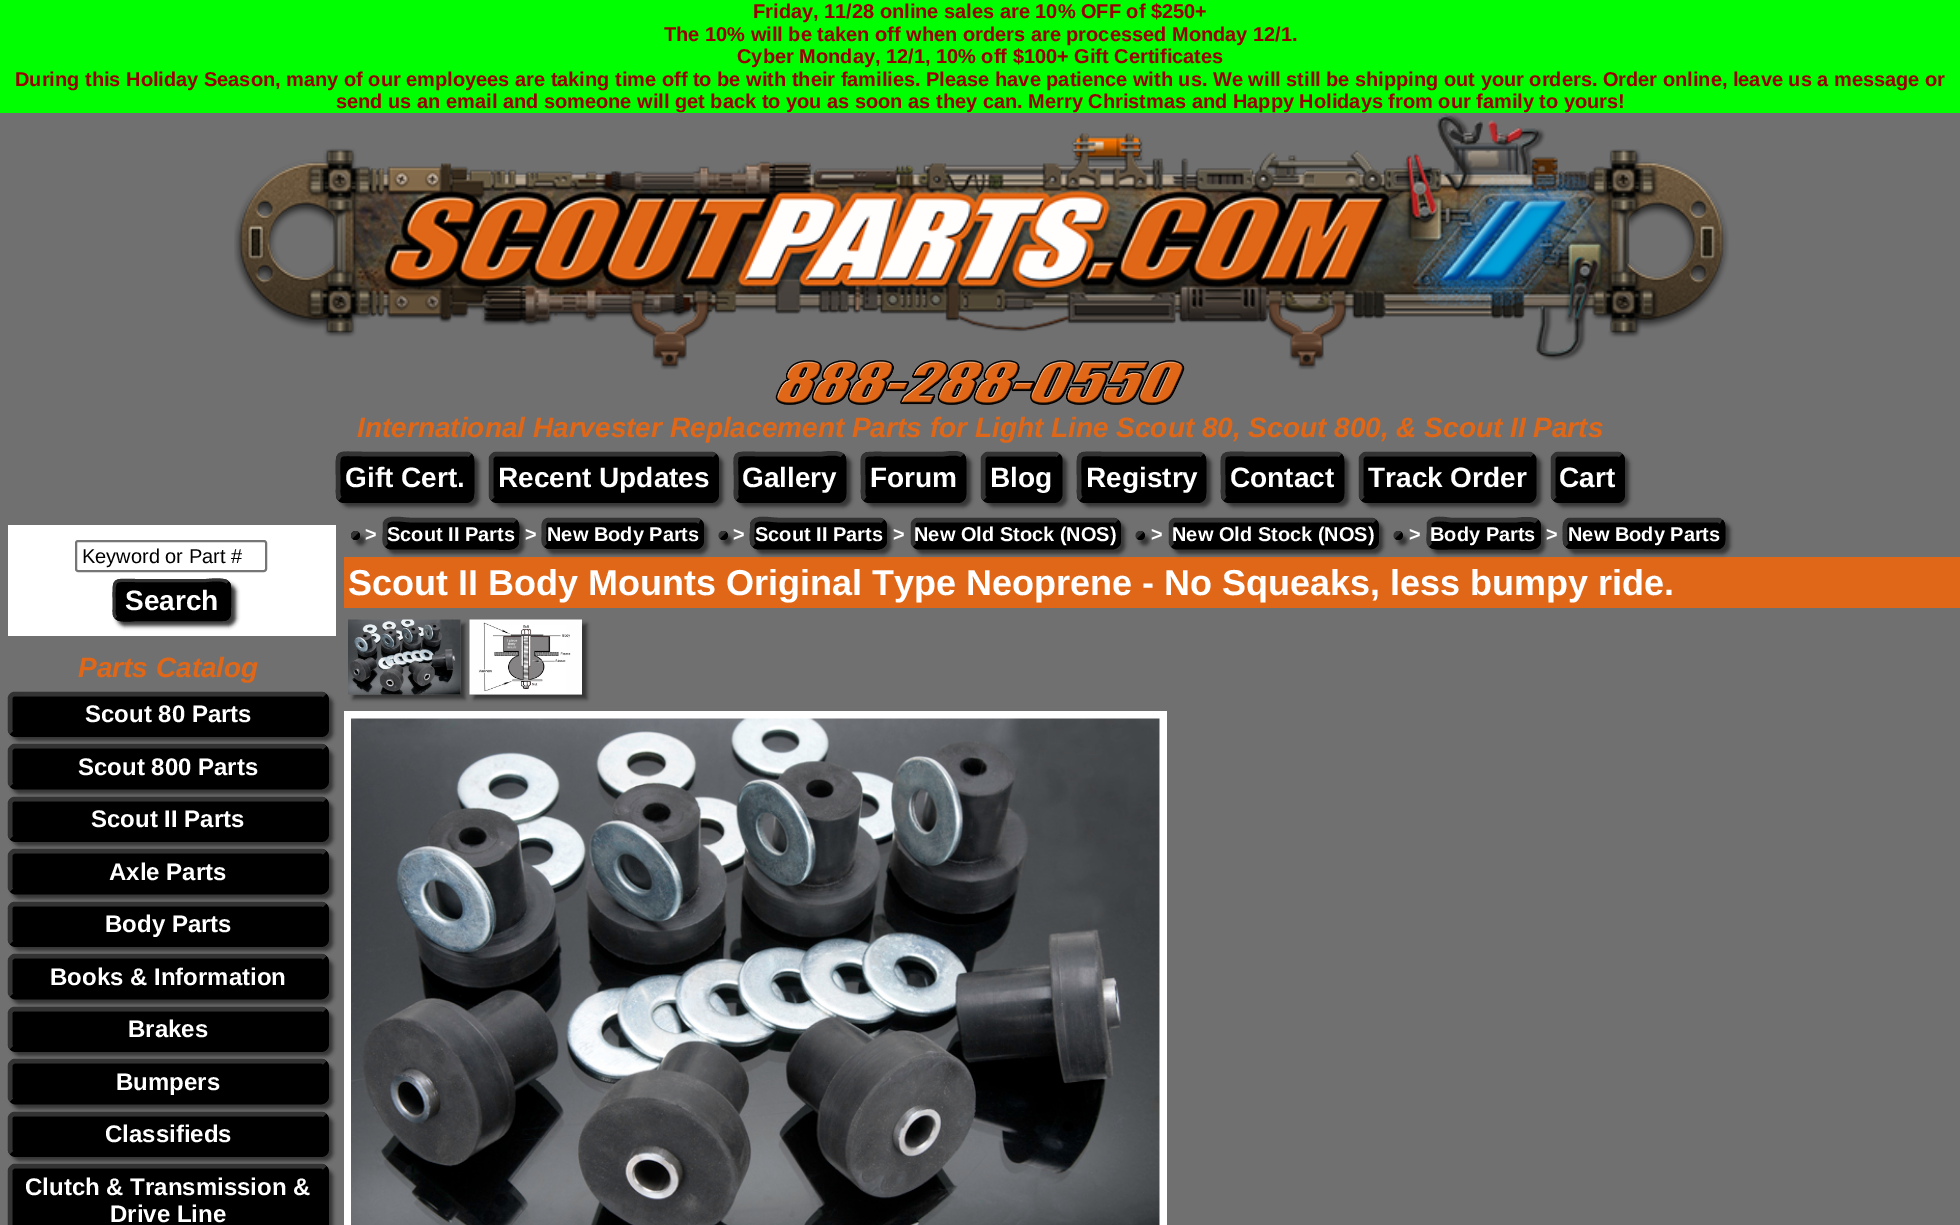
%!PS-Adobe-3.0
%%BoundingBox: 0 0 1960 1225
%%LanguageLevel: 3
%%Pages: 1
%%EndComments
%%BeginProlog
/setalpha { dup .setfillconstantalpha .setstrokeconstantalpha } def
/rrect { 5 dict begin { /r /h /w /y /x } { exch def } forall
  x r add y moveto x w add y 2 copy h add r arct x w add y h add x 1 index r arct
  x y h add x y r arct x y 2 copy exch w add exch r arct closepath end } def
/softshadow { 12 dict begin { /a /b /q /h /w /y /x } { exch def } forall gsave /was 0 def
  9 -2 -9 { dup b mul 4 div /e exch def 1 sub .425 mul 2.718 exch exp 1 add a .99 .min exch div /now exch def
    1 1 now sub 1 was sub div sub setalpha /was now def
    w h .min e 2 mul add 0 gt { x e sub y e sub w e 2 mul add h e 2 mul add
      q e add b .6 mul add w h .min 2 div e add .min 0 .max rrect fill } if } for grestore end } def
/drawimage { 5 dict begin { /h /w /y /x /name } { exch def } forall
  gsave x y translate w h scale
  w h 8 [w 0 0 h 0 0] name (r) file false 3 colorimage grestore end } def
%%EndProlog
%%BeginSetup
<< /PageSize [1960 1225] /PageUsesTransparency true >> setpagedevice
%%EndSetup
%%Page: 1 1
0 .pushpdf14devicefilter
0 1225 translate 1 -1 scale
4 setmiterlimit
0.439 setgray
0 0 1960 1225 rectfill
0 1 0 setrgbcolor
0 0 1960 113 rectfill
(images/1.raw) 234 114 1495 256 drawimage
(images/2.raw) 775 360 410 45 drawimage
0.2 setgray
341 456 138 51 8 2 1 softshadow
0 setgray
336 452 138 51 8 rrect fill
4.5 setlinewidth
newpath 470 455.5 moveto 472.5 457.5 472 462 472 465 curveto 472 477 lineto 472 504.5 475.5 500 446 500 curveto 343.5 500 lineto 342 500 341 499.5 340 498.5 curveto stroke
0.2 setgray
newpath 340 498.5 moveto 337.5 496.5 338 492 338 489 curveto 338 477 lineto 338 449.5 334.5 454 364 454 curveto 466.5 454 lineto 468 454 469 454.5 470 455.5 curveto stroke
494 456 229 51 8 2 1 softshadow
0 setgray
489 452 230 51 8 rrect fill
newpath 714.5 455.5 moveto 715.5 456.5 716 457.5 716 459 curveto 716 495 lineto 716 496.5 715.5 497.5 714.5 498.5 curveto 713.5 499.5 712.5 500 711 500 curveto 496.5 500 lineto 495 500 494 499.5 493 498.5 curveto stroke
0.2 setgray
newpath 493 498.5 moveto 492 497.5 491 496.5 491 495 curveto 491 459 lineto 491 457.5 492 456.5 493 455.5 curveto 494 454.5 495 454 496.5 454 curveto 711 454 lineto 712.5 454 713.5 454.5 714.5 455.5 curveto stroke
738 456 113 51 8 2 1 softshadow
0 setgray
734 452 112 51 8 rrect fill
newpath 842 455.5 moveto 844.5 457.5 844 462 844 465 curveto 844 477 lineto 844 503 848 500 822 500 curveto 757 500 lineto 756 500 741.5 502.5 737.5 498.5 curveto stroke
0.2 setgray
newpath 737.5 498.5 moveto 735 496.5 736 492 736 489 curveto 736 477 lineto 736 451 731.5 454 757 454 curveto 822 454 lineto 823.5 454 838 451.5 842 455.5 curveto stroke
866 456 105 51 8 2 1 softshadow
0 setgray
861 452 105 51 8 rrect fill
newpath 962 455.5 moveto 964.5 457.5 964 462 964 465 curveto 964 477 lineto 964 502 968 500 943.5 500 curveto 883.5 500 lineto 881.5 500 868.5 502.5 865 498.5 curveto stroke
0.2 setgray
newpath 865 498.5 moveto 862.5 496.5 863 492 863 489 curveto 863 477 lineto 863 452 859 454 883.5 454 curveto 943.5 454 lineto 945.5 454 958.5 451.5 962 455.5 curveto stroke
986 456 81 51 8 2 1 softshadow
0 setgray
981 452 81 51 8 rrect fill
newpath 1058 455.5 moveto 1059 456.5 1060 457.5 1060 459 curveto 1060 495 lineto 1060 496.5 1059 497.5 1058 498.5 curveto 1057 499.5 1056 500 1054.5 500 curveto 988.5 500 lineto 987 500 986 499.5 985 498.5 curveto stroke
0.2 setgray
newpath 985 498.5 moveto 984 497.5 983 496.5 983 495 curveto 983 459 lineto 983 457.5 984 456.5 985 455.5 curveto 986 454.5 987 454 988.5 454 curveto 1054.5 454 lineto 1056 454 1057 454.5 1058 455.5 curveto stroke
1082 456 129 51 8 2 1 softshadow
0 setgray
1077 452 129 51 8 rrect fill
newpath 1202 455.5 moveto 1204.5 457.5 1204 462 1204 465 curveto 1204 477 lineto 1204 504 1207.5 500 1179.5 500 curveto 1084.5 500 lineto 1083 500 1082 499.5 1081 498.5 curveto stroke
0.2 setgray
newpath 1081 498.5 moveto 1078.5 496.5 1079 492 1079 489 curveto 1079 477 lineto 1079 450 1075.5 454 1103.5 454 curveto 1198.5 454 lineto 1200 454 1201 454.5 1202 455.5 curveto stroke
1226 456 123 51 8 2 1 softshadow
0 setgray
1221 452 123 51 8 rrect fill
newpath 1340 455.5 moveto 1342.5 457.5 1342 462 1342 465 curveto 1342 477 lineto 1342 503.5 1346 500 1318.5 500 curveto 1228.5 500 lineto 1227 500 1226 499.5 1225 498.5 curveto stroke
0.2 setgray
newpath 1225 498.5 moveto 1222.5 496.5 1223 492 1223 489 curveto 1223 477 lineto 1223 450.5 1219 454 1246.5 454 curveto 1336.5 454 lineto 1338 454 1339 454.5 1340 455.5 curveto stroke
1364 456 177 51 8 2 1 softshadow
0 setgray
1359 452 177 51 8 rrect fill
newpath 1532 455.5 moveto 1533 456.5 1534 457.5 1534 459 curveto 1534 495 lineto 1534 496.5 1533 497.5 1532 498.5 curveto 1531 499.5 1530 500 1528.5 500 curveto 1366.5 500 lineto 1365 500 1364 499.5 1363 498.5 curveto stroke
0.2 setgray
newpath 1363 498.5 moveto 1362 497.5 1361 496.5 1361 495 curveto 1361 459 lineto 1361 457.5 1362 456.5 1363 455.5 curveto 1364 454.5 1365 454 1366.5 454 curveto 1528.5 454 lineto 1530 454 1531 454.5 1532 455.5 curveto stroke
1556 456 73 51 8 2 1 softshadow
0 setgray
1551 452 74 51 8 rrect fill
newpath 1620.5 455.5 moveto 1621.5 456.5 1622 457.5 1622 459 curveto 1622 495 lineto 1622 496.5 1621.5 497.5 1620.5 498.5 curveto 1619.5 499.5 1618.5 500 1617 500 curveto 1558.5 500 lineto 1557 500 1556 499.5 1555 498.5 curveto stroke
0.2 setgray
newpath 1555 498.5 moveto 1554 497.5 1553 496.5 1553 495 curveto 1553 459 lineto 1553 457.5 1554 456.5 1555 455.5 curveto 1556 454.5 1557 454 1558.5 454 curveto 1617 454 lineto 1618.5 454 1619.5 454.5 1620.5 455.5 curveto stroke
1 setgray
8 525 328 111 rectfill
0.463 setgray
2 setlinewidth
76 541 190 30 2 rrect stroke
0.2 setgray
117 584 119 42 8 2 1 softshadow
0 setgray
113 579 118 42 8 rrect fill
3 setlinewidth
newpath 227.5 582.5 moveto 230 584.5 229.5 588 229.5 591 curveto 229.5 600 lineto 229.5 623 231 619.5 206 619.5 curveto 137 619.5 lineto 135 619.5 120 622 116 617.5 curveto stroke
0.2 setgray
newpath 116 617.5 moveto 113.5 615.5 114 612 114 609 curveto 114 600 lineto 114 577 112.5 580.5 137 580.5 curveto 206 580.5 lineto 208.5 580.5 223.5 578 227.5 582.5 curveto stroke
12 696 321 45 8 2 1 softshadow
0 setgray
8 692 321 45 8 rrect fill
4.5 setlinewidth
newpath 324.5 695.5 moveto 325.5 696.5 326 697.5 326 699 curveto 326 729 lineto 326 730.5 325.5 731.5 324.5 732.5 curveto 323.5 733.5 322.5 734 321 734 curveto 15 734 lineto 13.5 734 12.5 733.5 11.5 732.5 curveto stroke
0.2 setgray
newpath 11.5 732.5 moveto 10.5 731.5 10 730.5 10 729 curveto 10 699 lineto 10 697.5 10.5 696.5 11.5 695.5 curveto 12.5 694.5 13.5 694 15 694 curveto 321 694 lineto 322.5 694 323.5 694.5 324.5 695.5 curveto stroke
12 749 321 45 8 2 1 softshadow
0 setgray
8 744 321 45 8 rrect fill
newpath 324.5 748 moveto 325.5 749 326 750 326 751.5 curveto 326 781.5 lineto 326 783 325.5 784 324.5 785 curveto 323.5 786 322.5 787 321 787 curveto 15 787 lineto 13.5 787 12.5 786 11.5 785 curveto stroke
0.2 setgray
newpath 11.5 785 moveto 10.5 784 10 783 10 781.5 curveto 10 751.5 lineto 10 750 10.5 749 11.5 748 curveto 12.5 747 13.5 746 15 746 curveto 321 746 lineto 322.5 746 323.5 747 324.5 748 curveto stroke
12 801 321 45 8 2 1 softshadow
0 setgray
8 797 321 45 8 rrect fill
newpath 324.5 800.5 moveto 325.5 801.5 326 802.5 326 804 curveto 326 834 lineto 326 835.5 325.5 836.5 324.5 837.5 curveto 323.5 838.5 322.5 839 321 839 curveto 15 839 lineto 13.5 839 12.5 838.5 11.5 837.5 curveto stroke
0.2 setgray
newpath 11.5 837.5 moveto 10.5 836.5 10 835.5 10 834 curveto 10 804 lineto 10 802.5 10.5 801.5 11.5 800.5 curveto 12.5 799.5 13.5 799 15 799 curveto 321 799 lineto 322.5 799 323.5 799.5 324.5 800.5 curveto stroke
12 854 321 45 8 2 1 softshadow
0 setgray
8 849 321 45 8 rrect fill
newpath 324.5 853 moveto 325.5 854 326 855 326 856.5 curveto 326 886.5 lineto 326 888 325.5 889 324.5 890 curveto 323.5 891 322.5 892 321 892 curveto 15 892 lineto 13.5 892 12.5 891 11.5 890 curveto stroke
0.2 setgray
newpath 11.5 890 moveto 10.5 889 10 888 10 886.5 curveto 10 856.5 lineto 10 855 10.5 854 11.5 853 curveto 12.5 852 13.5 851 15 851 curveto 321 851 lineto 322.5 851 323.5 852 324.5 853 curveto stroke
12 906 321 45 8 2 1 softshadow
0 setgray
8 902 321 45 8 rrect fill
newpath 324.5 905.5 moveto 325.5 906.5 326 907.5 326 909 curveto 326 939 lineto 326 940.5 325.5 941.5 324.5 942.5 curveto 323.5 943.5 322.5 944 321 944 curveto 15 944 lineto 13.5 944 12.5 943.5 11.5 942.5 curveto stroke
0.2 setgray
newpath 11.5 942.5 moveto 10.5 941.5 10 940.5 10 939 curveto 10 909 lineto 10 907.5 10.5 906.5 11.5 905.5 curveto 12.5 904.5 13.5 904 15 904 curveto 321 904 lineto 322.5 904 323.5 904.5 324.5 905.5 curveto stroke
12 959 321 45 8 2 1 softshadow
0 setgray
8 954 321 45 8 rrect fill
newpath 324.5 958 moveto 325.5 959 326 960 326 961.5 curveto 326 991.5 lineto 326 993 325.5 994 324.5 995 curveto 323.5 996 322.5 997 321 997 curveto 15 997 lineto 13.5 997 12.5 996 11.5 995 curveto stroke
0.2 setgray
newpath 11.5 995 moveto 10.5 994 10 993 10 991.5 curveto 10 961.5 lineto 10 960 10.5 959 11.5 958 curveto 12.5 957 13.5 956 15 956 curveto 321 956 lineto 322.5 956 323.5 957 324.5 958 curveto stroke
12 1011 321 45 8 2 1 softshadow
0 setgray
8 1007 321 45 8 rrect fill
newpath 324.5 1010.5 moveto 325.5 1011.5 326 1012.5 326 1014 curveto 326 1044 lineto 326 1045.5 325.5 1046.5 324.5 1047.5 curveto 323.5 1048.5 322.5 1049 321 1049 curveto 15 1049 lineto 13.5 1049 12.5 1048.5 11.5 1047.5 curveto stroke
0.2 setgray
newpath 11.5 1047.5 moveto 10.5 1046.5 10 1045.5 10 1044 curveto 10 1014 lineto 10 1012.5 10.5 1011.5 11.5 1010.5 curveto 12.5 1009.5 13.5 1009 15 1009 curveto 321 1009 lineto 322.5 1009 323.5 1009.5 324.5 1010.5 curveto stroke
12 1064 321 45 8 2 1 softshadow
0 setgray
8 1059 321 45 8 rrect fill
newpath 324.5 1063 moveto 325.5 1064 326 1065 326 1066.5 curveto 326 1096.5 lineto 326 1098 325.5 1099 324.5 1100 curveto 323.5 1101 322.5 1102 321 1102 curveto 15 1102 lineto 13.5 1102 12.5 1101 11.5 1100 curveto stroke
0.2 setgray
newpath 11.5 1100 moveto 10.5 1099 10 1098 10 1096.5 curveto 10 1066.5 lineto 10 1065 10.5 1064 11.5 1063 curveto 12.5 1062 13.5 1061 15 1061 curveto 321 1061 lineto 322.5 1061 323.5 1062 324.5 1063 curveto stroke
12 1116 321 45 8 2 1 softshadow
0 setgray
8 1112 321 45 8 rrect fill
newpath 324.5 1115.5 moveto 325.5 1116.5 326 1117.5 326 1119 curveto 326 1149 lineto 326 1150.5 325.5 1151.5 324.5 1152.5 curveto 323.5 1153.5 322.5 1154 321 1154 curveto 15 1154 lineto 13.5 1154 12.5 1153.5 11.5 1152.5 curveto stroke
0.2 setgray
newpath 11.5 1152.5 moveto 10.5 1151.5 10 1150.5 10 1149 curveto 10 1119 lineto 10 1117.5 10.5 1116.5 11.5 1115.5 curveto 12.5 1114.5 13.5 1114 15 1114 curveto 321 1114 lineto 322.5 1114 323.5 1114.5 324.5 1115.5 curveto stroke
12 1169 321 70 8 2 1 softshadow
0 setgray
8 1164 321 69 8 rrect fill
newpath 324.5 1168 moveto 325.5 1169 326 1170 326 1171.5 curveto 326 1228.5 lineto 326 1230 325.5 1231 324.5 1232 curveto 323.5 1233 322.5 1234 321 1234 curveto 15 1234 lineto 13.5 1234 12.5 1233 11.5 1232 curveto stroke
0.2 setgray
newpath 11.5 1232 moveto 10.5 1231 10 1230 10 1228.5 curveto 10 1171.5 lineto 10 1170 10.5 1169 11.5 1168 curveto 12.5 1167 13.5 1166 15 1166 curveto 321 1166 lineto 322.5 1166 323.5 1167 324.5 1168 curveto stroke
356 536 9 9 4.5 2 1 softshadow
0 setgray
newpath 355.5 535.5 4.5 0 360 arc closepath fill
newpath 357 534 moveto 359 536 356 539 354 537 curveto stroke
0.2 setgray
newpath 354 537 moveto 352 535 355 532 357 534 curveto stroke
0.875 0.404 0.09 setrgbcolor
344 557 1616 51 rectfill
0.2 setgray
387 522 137 32 8 2 1 softshadow
0 setgray
383 518 136 31 8 rrect fill
newpath 515 521.5 moveto 518 524 517 530 517 533 curveto 516.5 542.5 lineto 515 550.5 498.5 547 491 547 curveto 390 547 lineto 388.5 546.5 387.5 546 386.5 545 curveto stroke
0.2 setgray
newpath 386.5 545 moveto 383.5 542.5 385 536.5 385 533 curveto 385 524 lineto 386.5 516 403 520 410 520 curveto 511.5 520 lineto 513 520 514 520.5 515 521.5 curveto stroke
546 522 162 32 8 2 1 softshadow
0 setgray
542 518 162 31 8 rrect fill
newpath 699.5 521.5 moveto 702.5 524 701 530 701 533 curveto 701 537.5 703 546.5 696 547 curveto 548.5 546.5 lineto 545.5 545 lineto stroke
0.2 setgray
newpath 545.5 545 moveto 542.5 542.5 544 536.5 544 533 curveto 544 529 542 520 549 520 curveto 696.5 520 lineto 699.5 521.5 lineto stroke
723 536 9 9 4.5 2 1 softshadow
0 setgray
newpath 723.5 535.5 4.5 0 360 arc closepath fill
newpath 724.5 534 moveto 726.5 536 723.5 539 721.5 537 curveto stroke
0.2 setgray
newpath 721.5 537 moveto 719.5 535 722.5 532 724.5 534 curveto stroke
755 522 136 32 8 2 1 softshadow
0 setgray
750 518 137 31 8 rrect fill
newpath 882.5 521.5 moveto 885.5 524 884 530 884 533 curveto 884 542.5 lineto 882.5 550.5 866 547 859 547 curveto 757.5 547 lineto 756 546.5 755 546 754 545 curveto stroke
0.2 setgray
newpath 754 545 moveto 751 542.5 752 536.5 752 533 curveto 752.5 524 lineto 754 516 770.5 520 778 520 curveto 879 520 lineto 880.5 520 881.5 520.5 882.5 521.5 curveto stroke
915 522 210 32 8 2 1 softshadow
0 setgray
911 518 210 31 8 rrect fill
newpath 1116.5 521.5 moveto 1117.5 522.5 1118 523.5 1118 525 curveto 1118 541.5 lineto 1118 543 1117.5 544 1116.5 545 curveto 1115.5 546 1114.5 547 1113 547 curveto 918 547 lineto 916.5 547 915.5 546 914.5 545 curveto stroke
0.2 setgray
newpath 914.5 545 moveto 913.5 544 913 543 913 541.5 curveto 913 525 lineto 913 523.5 913.5 522.5 914.5 521.5 curveto 915.5 520.5 916.5 520 918 520 curveto 1113 520 lineto 1114.5 520 1115.5 520.5 1116.5 521.5 curveto stroke
1140 536 9 9 4.5 2 1 softshadow
0 setgray
newpath 1140.5 535.5 4.5 0 360 arc closepath fill
newpath 1141.5 534 moveto 1143.5 536 1140.5 539 1138.5 537 curveto stroke
0.2 setgray
newpath 1138.5 537 moveto 1136.5 535 1139.5 532 1141.5 534 curveto stroke
1173 522 210 32 8 2 1 softshadow
0 setgray
1169 518 210 31 8 rrect fill
newpath 1374.5 521.5 moveto 1375.5 522.5 1376 523.5 1376 525 curveto 1376 541.5 lineto 1376 543 1375.5 544 1374.5 545 curveto 1373.5 546 1372.5 547 1371 547 curveto 1176 547 lineto 1174.5 547 1173.5 546 1172.5 545 curveto stroke
0.2 setgray
newpath 1172.5 545 moveto 1171.5 544 1171 543 1171 541.5 curveto 1171 525 lineto 1171 523.5 1171.5 522.5 1172.5 521.5 curveto 1173.5 520.5 1174.5 520 1176 520 curveto 1371 520 lineto 1372.5 520 1373.5 520.5 1374.5 521.5 curveto stroke
1398 536 9 9 4.5 2 1 softshadow
0 setgray
newpath 1398.5 535.5 4.5 0 360 arc closepath fill
newpath 1399.5 534 moveto 1401.5 536 1398.5 539 1396.5 537 curveto stroke
0.2 setgray
newpath 1396.5 537 moveto 1394.5 535 1397.5 532 1399.5 534 curveto stroke
1431 522 114 32 8 2 1 softshadow
0 setgray
1427 518 114 31 8 rrect fill
newpath 1536.5 521.5 moveto 1539.5 524 1538 530 1538 533 curveto 1538 542.5 lineto 1536.5 550.5 1518 547 1516.5 547 curveto 1450.5 547 lineto 1449.5 547 1434.5 549 1430.5 545 curveto stroke
0.2 setgray
newpath 1430.5 545 moveto 1427.5 542.5 1429 536.5 1429 533 curveto 1429 524 lineto 1430.5 516 1449 520 1450.5 520 curveto 1516.5 520 lineto 1517.5 520 1532.5 517.5 1536.5 521.5 curveto stroke
1568 522 162 32 8 2 1 softshadow
0 setgray
1563 518 162 31 8 rrect fill
newpath 1721 521.5 moveto 1724 524 1723 530 1723 533 curveto 1723 537.5 1724.5 546.5 1717.5 547 curveto 1570 546.5 lineto 1567 545 lineto stroke
0.2 setgray
newpath 1567 545 moveto 1564 542.5 1565 536.5 1565 533 curveto 1565 529 1563.5 520 1570.5 520 curveto 1718 520 lineto 1721 521.5 lineto stroke
353 624 112 75 0 2 1 softshadow
(images/3.raw) 348 619 113 76 drawimage
474 624 113 75 0 2 1 softshadow
(images/4.raw) 469 619 113 76 drawimage
1 setgray
344 711 823 514 rectfill
(images/5.raw) 351 718 809 507 drawimage
/LiberationSans-Bold [20 0 0 -20 0 0] selectfont
0.6 0 0 setrgbcolor
753 18 moveto (Friday, 11/28 online sales are 10% OFF of $250+) show
664 41 moveto (The 10% will be taken off when orders are processed Monday 12/1.) show
737 63 moveto (Cyber Monday, 12/1, 10% off $100+ Gift Certificates) show
15 86 moveto (During this Holiday Season, many of our employees are taking time off to be with their families. Please have patience with us. We will still be shipping out your orders. Order online, leave us a message or) show
336 108 moveto (send us an email and someone will get back to you as soon as they can. Merry Christmas and Happy Holidays from our family to yours!) show
/LiberationSans-BoldItalic [28 0 0 -28 0 0] selectfont
0.875 0.404 0.09 setrgbcolor
357 437 moveto (International Harvester Replacement Parts for Light Line Scout 80, Scout 800, & Scout II Parts) show
/LiberationSans-Bold [28 0 0 -28 0 0] selectfont
1 setgray
345 487 moveto (Gift Cert.) show
498 487 moveto (Recent Updates) show
742 487 moveto (Gallery) show
870 487 moveto (Forum) show
990 487 moveto (Blog) show
1086 487 moveto (Registry) show
1230 487 moveto (Contact) show
1368 487 moveto (Track Order) show
1559 487 moveto (Cart) show
/LiberationSans-Regular [20 0 0 -20 0 0] selectfont
0 setgray
82 563 moveto (Keyword or Part #) show
/LiberationSans-Bold [28 0 0 -28 0 0] selectfont
1 setgray
125 610 moveto (Search) show
/LiberationSans-BoldItalic [28 0 0 -28 0 0] selectfont
0.875 0.404 0.09 setrgbcolor
78 677 moveto (Parts Catalog) show
/LiberationSans-Bold [24 0 0 -24 0 0] selectfont
1 setgray
85 722 moveto (Scout 80 Parts) show
78 775 moveto (Scout 800 Parts) show
91 827 moveto (Scout II Parts) show
109 880 moveto (Axle Parts) show
105 932 moveto (Body Parts) show
50 985 moveto (Books & Information) show
128 1037 moveto (Brakes) show
116 1090 moveto (Bumpers) show
105 1142 moveto (Classifieds) show
25 1195 moveto (Clutch & Transmission &) show
110 1222 moveto (Drive Line) show
/LiberationSans-Bold [20 0 0 -20 0 0] selectfont
387 541 moveto (Scout II Parts) show
547 541 moveto (New Body Parts) show
365 541 moveto (>) show
525 541 moveto (>) show
755 541 moveto (Scout II Parts) show
914 541 moveto (New Old Stock \(NOS\)) show
733 541 moveto (>) show
893 541 moveto (>) show
1151 541 moveto (>) show
1172 541 moveto (New Old Stock \(NOS\)) show
1409 541 moveto (>) show
1430 541 moveto (Body Parts) show
1546 541 moveto (>) show
1568 541 moveto (New Body Parts) show
/LiberationSans-Bold [36 0 0 -36 0 0] selectfont
348 595 moveto (Scout II Body Mounts Original Type Neoprene - No Squeaks, less bumpy ride.) show
.poppdf14devicefilter showpage
%%EOF
